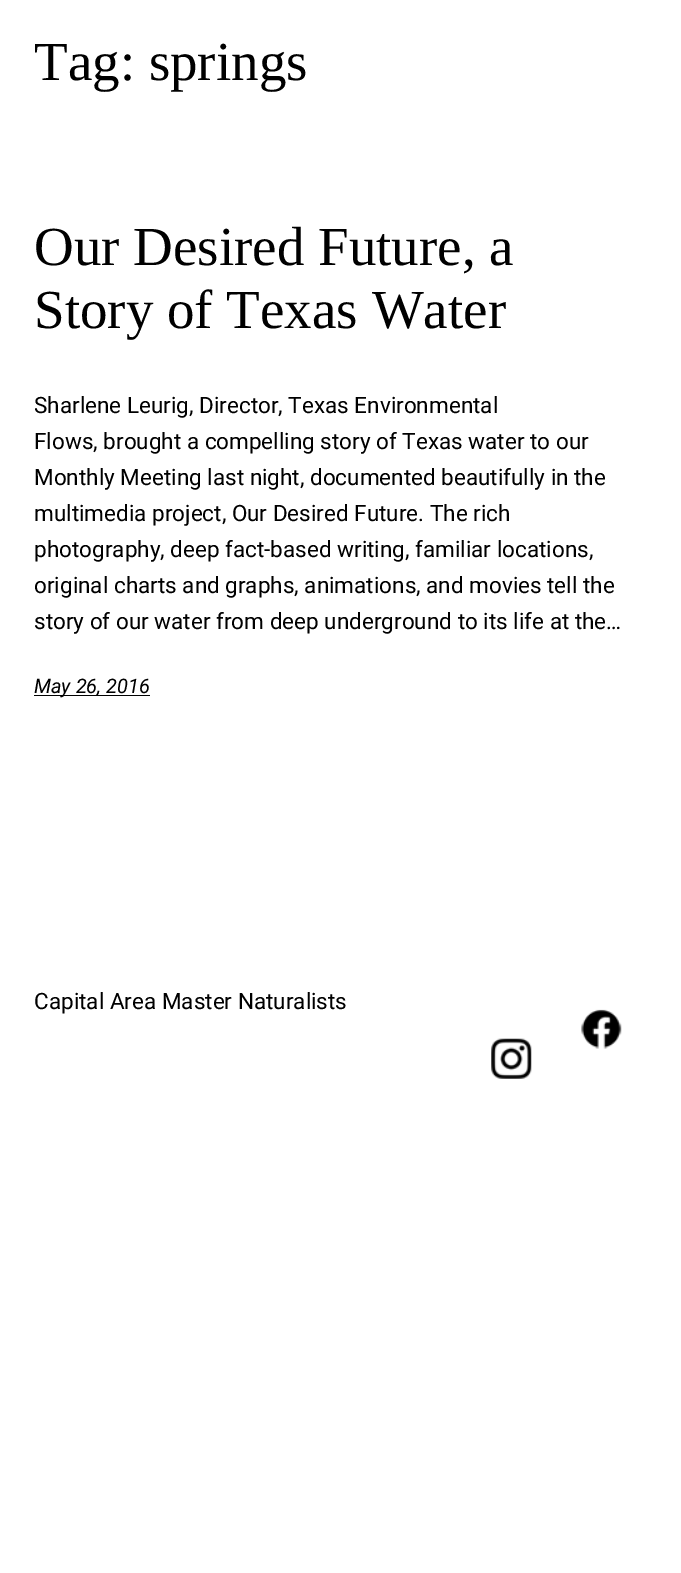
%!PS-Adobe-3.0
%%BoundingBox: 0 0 681 1573
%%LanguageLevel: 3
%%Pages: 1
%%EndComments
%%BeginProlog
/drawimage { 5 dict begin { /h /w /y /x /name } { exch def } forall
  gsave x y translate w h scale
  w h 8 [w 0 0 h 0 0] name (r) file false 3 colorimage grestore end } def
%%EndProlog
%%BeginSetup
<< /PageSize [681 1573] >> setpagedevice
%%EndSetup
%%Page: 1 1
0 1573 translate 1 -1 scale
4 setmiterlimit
1 setgray
0 0 681 1573 rectfill
0 setgray
34 695 116 1 rectfill
(images/1.raw) 581 1009 41 40 drawimage
(images/2.raw) 491 1038 41 41 drawimage
/LiberationSerif-Regular [55 0 0 -55 0 0] selectfont
34 80 moveto (Tag: springs) show
34 265 moveto (Our Desired Future, a) show
34 328 moveto (Story of Texas Water) show
/Roboto-Regular [22.5 0 0 -22.5 0 0] selectfont
34 413 moveto (Sharlene Leurig, Director, Texas Environmental) show
34 449 moveto (Flows, brought a compelling story of Texas water to our) show
34 485 moveto (Monthly Meeting last night, documented beautifully in the) show
34 521 moveto (multimedia project, Our Desired Future. The rich) show
34 557 moveto (photography, deep fact-based writing, familiar locations,) show
34 593 moveto (original charts and graphs, animations, and movies tell the) show
34 629 moveto (story of our water from deep underground to its life at the…) show
/Roboto-Italic [20 0 0 -20 0 0] selectfont
34 693 moveto (May 26, 2016) show
/Roboto-Regular [22.5 0 0 -22.5 0 0] selectfont
34 1009 moveto (Capital Area Master Naturalists) show
showpage
%%EOF
